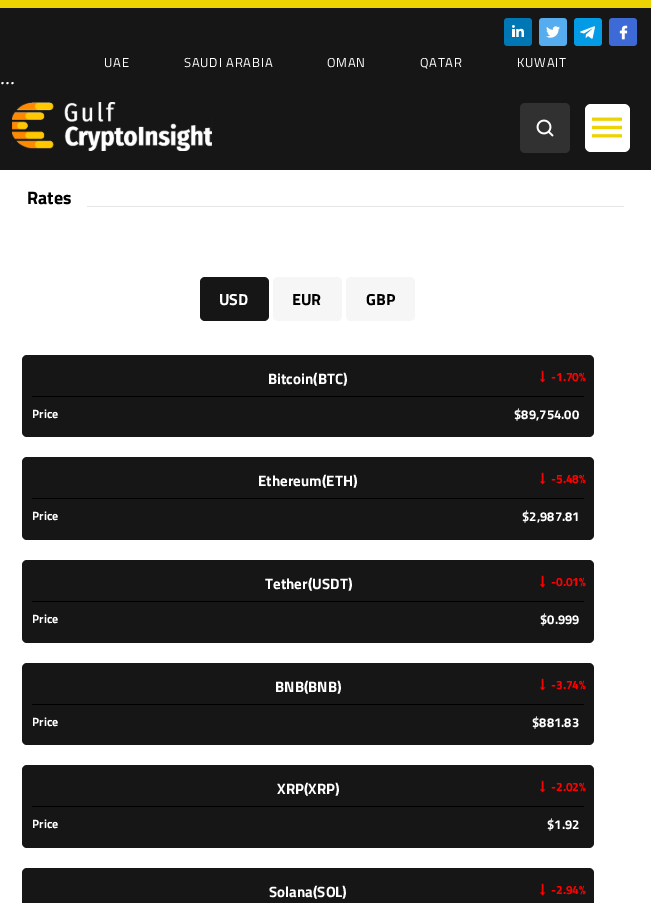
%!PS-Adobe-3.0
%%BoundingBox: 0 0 651 903
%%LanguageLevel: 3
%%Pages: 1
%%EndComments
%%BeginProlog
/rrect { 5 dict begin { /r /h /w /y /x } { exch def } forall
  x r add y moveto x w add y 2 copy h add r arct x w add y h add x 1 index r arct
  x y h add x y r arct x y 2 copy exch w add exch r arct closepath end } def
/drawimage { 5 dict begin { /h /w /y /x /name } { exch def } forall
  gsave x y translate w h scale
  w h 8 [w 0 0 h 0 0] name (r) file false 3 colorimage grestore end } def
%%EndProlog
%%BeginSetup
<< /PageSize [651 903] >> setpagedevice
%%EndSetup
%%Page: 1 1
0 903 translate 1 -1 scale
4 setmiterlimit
1 setgray
0 0 651 903 rectfill
0.925 0.831 0.012 setrgbcolor
0 0 651 8 rectfill
0.086 setgray
0 8 651 162 rectfill
(images/1.raw) 12 102 200 49 drawimage
0.192 setgray
520 103 50 50 5 rrect fill
(images/2.raw) 536 119 18 18 drawimage
1 setgray
585 104 45 48 6 rrect fill
(images/3.raw) 592 117 30 21 drawimage
(images/4.raw) 504 18 28 28 drawimage
(images/5.raw) 539 18 28 28 drawimage
(images/6.raw) 574 18 28 28 drawimage
(images/7.raw) 609 18 28 28 drawimage
0.898 setgray
87 206 537 1 rectfill
0.086 setgray
200 277 69 44 5 rrect fill
0.965 setgray
273 277 69 44 5 rrect fill
346 277 69 44 5 rrect fill
0.086 setgray
22 355 572 82 5 rrect fill
0 setgray
32 396 552 1 rectfill
(images/8.raw) 540 370 6 13 drawimage
0.086 setgray
22 457 572 83 5 rrect fill
0 setgray
32 498 552 1 rectfill
(images/8.raw) 540 472 6 13 drawimage
0.086 setgray
22 560 572 83 5 rrect fill
0 setgray
32 601 552 1 rectfill
(images/8.raw) 540 575 6 13 drawimage
0.086 setgray
22 663 572 82 5 rrect fill
0 setgray
32 704 552 1 rectfill
(images/8.raw) 540 678 6 13 drawimage
0.086 setgray
22 765 572 83 5 rrect fill
0 setgray
32 806 552 1 rectfill
(images/8.raw) 540 780 6 13 drawimage
0.086 setgray
22 868 572 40 5 rrect fill
(images/8.raw) 540 883 6 13 drawimage
/TitilliumWeb-Regular [13 0 0 -13 0 0] selectfont
1 setgray
104 67 moveto 0.75 0 (UAE) ashow
184 67 moveto 0.75 0 (SAUDI ARABIA) ashow
327 67 moveto 0.75 0 (OMAN) ashow
420 67 moveto 0.75 0 (QATAR) ashow
517 67 moveto 0.75 0 (KUWAIT) ashow
/LiberationSerif-Regular [20 0 0 -20 0 0] selectfont
0 84 moveto (...) show
/TitilliumWeb-Bold [18 0 0 -18 0 0] selectfont
0 setgray
27 204 moveto (Rates) show
/TitilliumWeb-Bold [16 0 0 -16 0 0] selectfont
1 setgray
219 305 moveto (USD) show
0 setgray
292 305 moveto (EUR) show
366 305 moveto (GBP) show
/TitilliumWeb-Bold [12 0 0 -12 0 0] selectfont
1 0 0 setrgbcolor
551 381 moveto (-1.70%) show
1 setgray
32 418 moveto (Price) show
/TitilliumWeb-Bold [13 0 0 -13 0 0] selectfont
514 419 moveto ($89,754.00) show
/TitilliumWeb-Bold [15 0 0 -15 0 0] selectfont
268 384 moveto (Bitcoin\(BTC\)) show
/TitilliumWeb-Bold [12 0 0 -12 0 0] selectfont
1 0 0 setrgbcolor
551 483 moveto (-5.48%) show
1 setgray
32 520 moveto (Price) show
/TitilliumWeb-Bold [13 0 0 -13 0 0] selectfont
522 521 moveto ($2,987.81) show
/TitilliumWeb-Bold [15 0 0 -15 0 0] selectfont
258 486 moveto (Ethereum\(ETH\)) show
/TitilliumWeb-Bold [12 0 0 -12 0 0] selectfont
1 0 0 setrgbcolor
551 586 moveto (-0.01%) show
1 setgray
32 623 moveto (Price) show
/TitilliumWeb-Bold [13 0 0 -13 0 0] selectfont
540 624 moveto ($0.999) show
/TitilliumWeb-Bold [15 0 0 -15 0 0] selectfont
265 589 moveto (Tether\(USDT\)) show
/TitilliumWeb-Bold [12 0 0 -12 0 0] selectfont
1 0 0 setrgbcolor
551 689 moveto (-3.74%) show
1 setgray
32 726 moveto (Price) show
/TitilliumWeb-Bold [13 0 0 -13 0 0] selectfont
532 727 moveto ($881.83) show
/TitilliumWeb-Bold [15 0 0 -15 0 0] selectfont
275 692 moveto (BNB\(BNB\)) show
/TitilliumWeb-Bold [12 0 0 -12 0 0] selectfont
1 0 0 setrgbcolor
551 791 moveto (-2.02%) show
1 setgray
32 828 moveto (Price) show
/TitilliumWeb-Bold [13 0 0 -13 0 0] selectfont
547 829 moveto ($1.92) show
/TitilliumWeb-Bold [15 0 0 -15 0 0] selectfont
277 794 moveto (XRP\(XRP\)) show
269 897 moveto (Solana\(SOL\)) show
/TitilliumWeb-Bold [12 0 0 -12 0 0] selectfont
1 0 0 setrgbcolor
551 894 moveto (-2.94%) show
showpage
%%EOF
